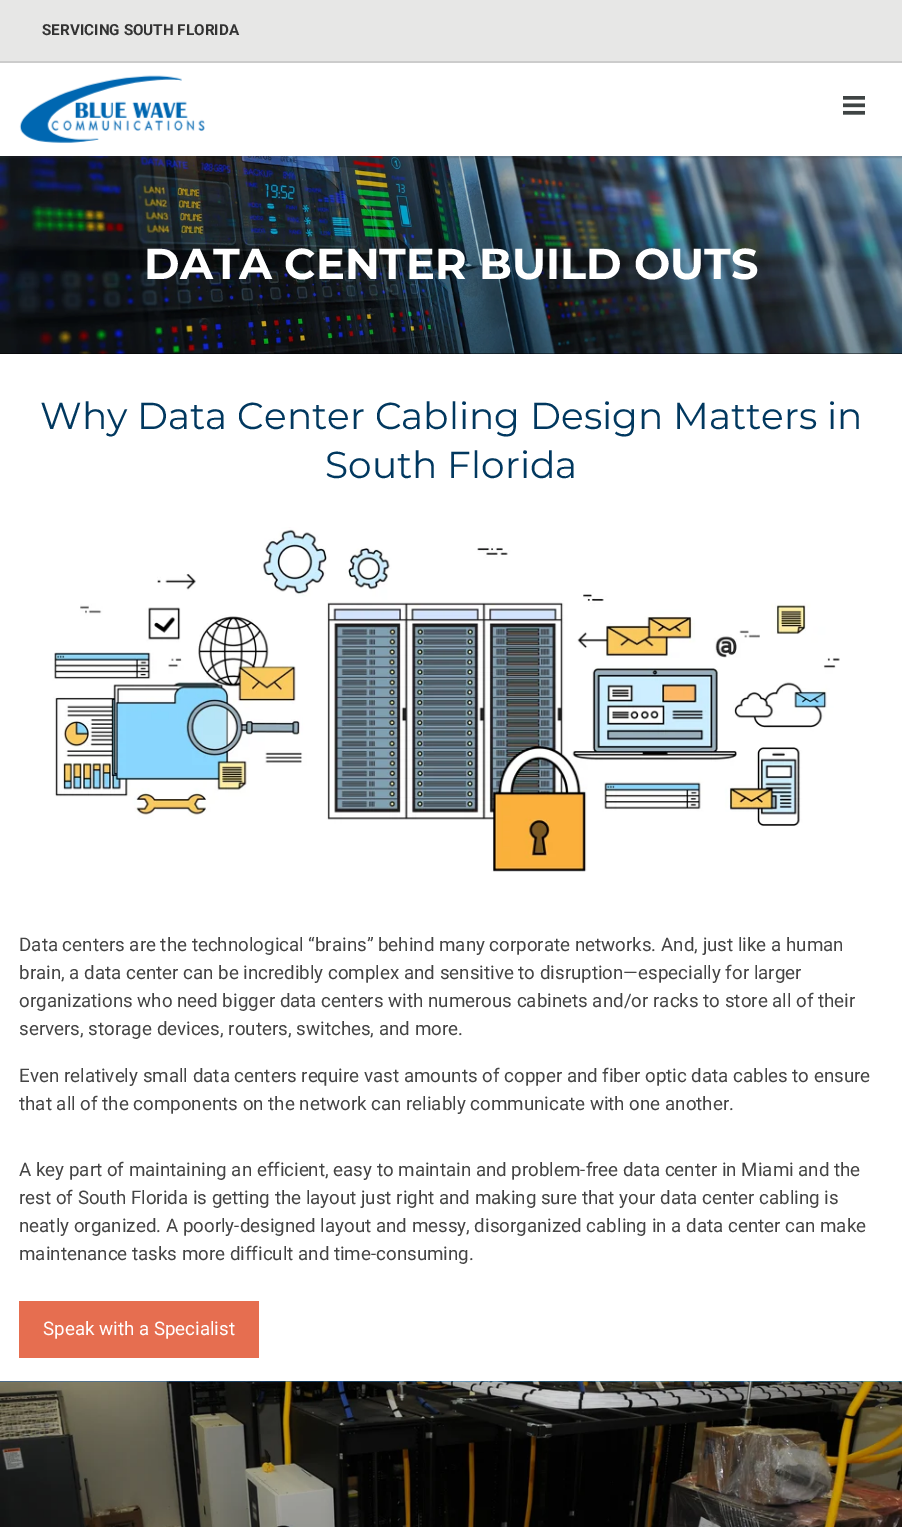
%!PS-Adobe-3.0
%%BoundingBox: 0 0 902 1527
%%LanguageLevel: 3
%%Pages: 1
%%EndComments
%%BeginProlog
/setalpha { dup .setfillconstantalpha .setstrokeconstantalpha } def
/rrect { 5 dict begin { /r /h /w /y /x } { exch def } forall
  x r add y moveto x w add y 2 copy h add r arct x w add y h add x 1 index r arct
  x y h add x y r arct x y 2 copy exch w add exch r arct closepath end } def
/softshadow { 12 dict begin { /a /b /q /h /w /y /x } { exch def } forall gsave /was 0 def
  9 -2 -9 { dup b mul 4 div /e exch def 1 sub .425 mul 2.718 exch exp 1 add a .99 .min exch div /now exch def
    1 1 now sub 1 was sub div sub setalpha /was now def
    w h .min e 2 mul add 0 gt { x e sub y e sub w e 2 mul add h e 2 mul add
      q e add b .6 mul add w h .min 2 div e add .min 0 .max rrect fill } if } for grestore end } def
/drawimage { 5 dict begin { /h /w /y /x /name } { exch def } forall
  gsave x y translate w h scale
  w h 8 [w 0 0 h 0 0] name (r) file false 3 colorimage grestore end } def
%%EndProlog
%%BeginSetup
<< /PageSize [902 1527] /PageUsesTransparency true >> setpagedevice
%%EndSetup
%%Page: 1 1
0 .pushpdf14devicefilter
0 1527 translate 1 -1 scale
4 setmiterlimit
1 setgray
0 0 902 1527 rectfill
0 setgray
0 156 902 198 rectfill
(images/3.raw) 0 156 902 198 drawimage
gsave
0 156 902 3 rectclip
0.2 setgray
0 63 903 95 0 0.5 0.2 softshadow
grestore
0.8 setgray
newpath 0 61 moveto 0 63 lineto 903 63 lineto 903 1 lineto 902 1 lineto 902 61 lineto closepath fill
0.906 0.906 0.902 setrgbcolor
0 0 902 61 rectfill
(images/1.raw) 19 75 186 68 drawimage
(images/2.raw) 843 96 22 19 drawimage
(images/4.raw) 50 527 790 345 drawimage
0.902 0.431 0.314 setrgbcolor
19 1301 240 57 rectfill
gsave newpath 0 1381 moveto 902 1381 lineto 902 1382 lineto 0 1382 lineto closepath clip newpath
<< /ShadingType 2 /ColorSpace /DeviceRGB /Coords [0 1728 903 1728] /Extend [true true] /Function << /FunctionType 2 /Domain [0 1] /C0 [0.078 0.369 0.745] /C1 [0.145 0.675 0.941] /N 1 >> >> shfill grestore
(images/5.raw) 0 1381 902 146 drawimage
/Roboto-Bold [15.25 0 0 -15.25 0 0] selectfont
0.2 setgray
42 35 moveto (SERVICING SOUTH FLORIDA) show
/Montserrat-Bold [43.1 0 0 -43.1 0 0] selectfont
1 setgray
144 279 moveto (DATA CENTER BUILD OUTS) show
/Montserrat-Regular [37.5 0 0 -37.5 0 0] selectfont
0.004 0.22 0.373 setrgbcolor
40 429 moveto (Why Data Center Cabling Design Matters in) show
325 478 moveto (South Florida) show
/Roboto-Regular [18.75 0 0 -18.75 0 0] selectfont
0.267 setgray
19 951 moveto (Data centers are the technological “brains” behind many corporate networks. And, just like a human) show
19 979 moveto (brain, a data center can be incredibly complex and sensitive to disruption—especially for larger) show
19 1007 moveto (organizations who need bigger data centers with numerous cabinets and/or racks to store all of their) show
19 1035 moveto (servers, storage devices, routers, switches, and more.) show
19 1082 moveto (Even relatively small data centers require vast amounts of copper and fiber optic data cables to ensure) show
19 1110 moveto (that all of the components on the network can reliably communicate with one another.) show
19 1176 moveto (A key part of maintaining an efficient, easy to maintain and problem-free data center in Miami and the) show
19 1204 moveto (rest of South Florida is getting the layout just right and making sure that your data center cabling is) show
19 1232 moveto (neatly organized. A poorly-designed layout and messy, disorganized cabling in a data center can make) show
19 1260 moveto (maintenance tasks more difficult and time-consuming.) show
1 setgray
43 1335 moveto (Speak with a Specialist) show
.poppdf14devicefilter showpage
%%EOF
